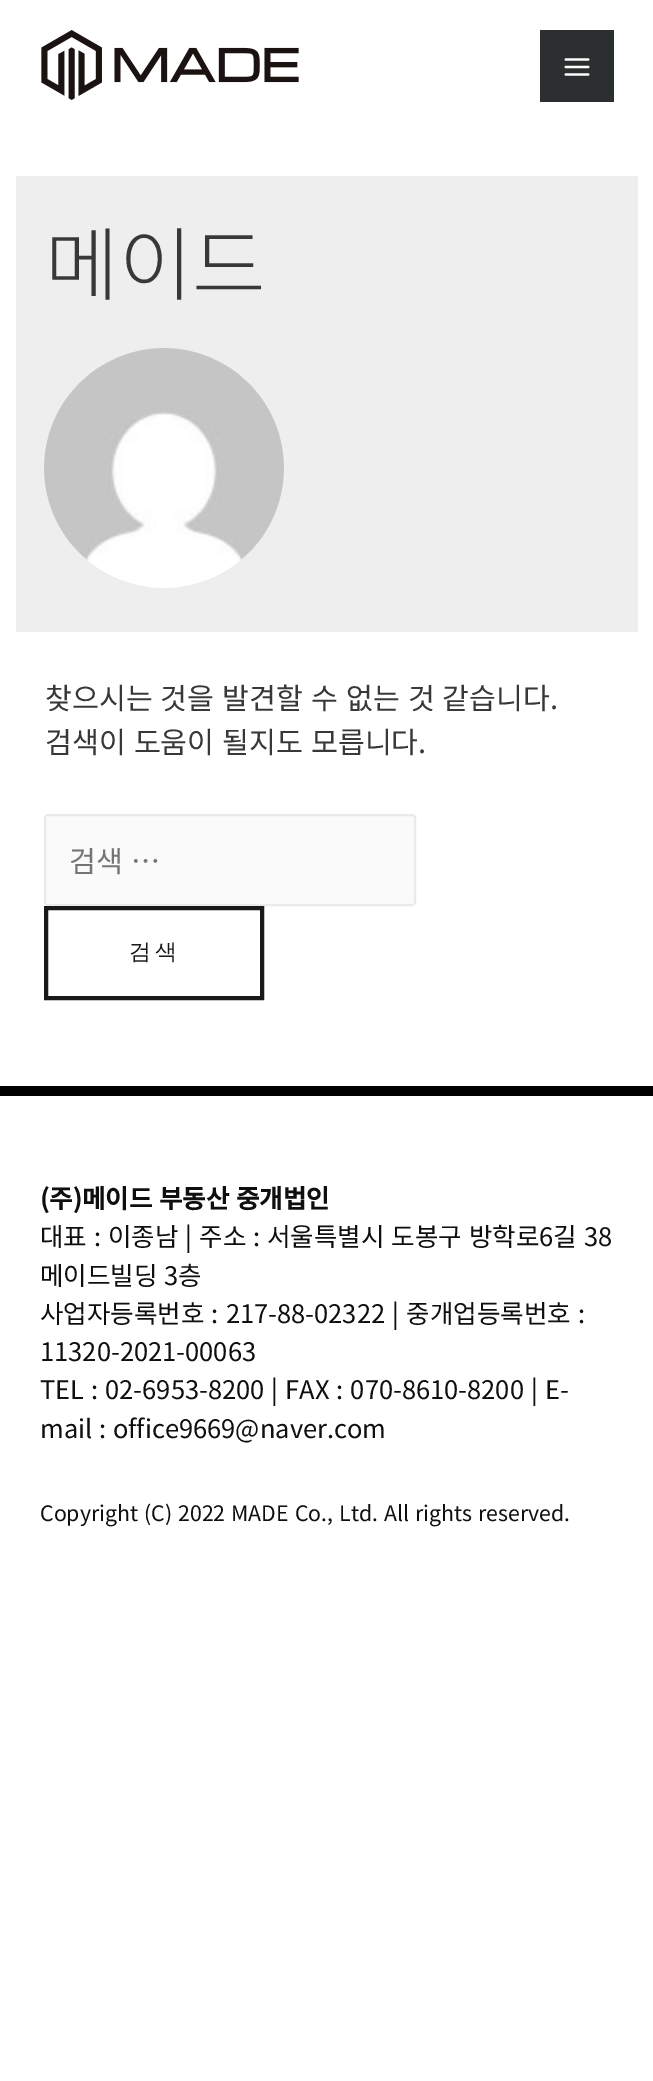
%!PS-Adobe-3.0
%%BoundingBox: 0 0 653 2081
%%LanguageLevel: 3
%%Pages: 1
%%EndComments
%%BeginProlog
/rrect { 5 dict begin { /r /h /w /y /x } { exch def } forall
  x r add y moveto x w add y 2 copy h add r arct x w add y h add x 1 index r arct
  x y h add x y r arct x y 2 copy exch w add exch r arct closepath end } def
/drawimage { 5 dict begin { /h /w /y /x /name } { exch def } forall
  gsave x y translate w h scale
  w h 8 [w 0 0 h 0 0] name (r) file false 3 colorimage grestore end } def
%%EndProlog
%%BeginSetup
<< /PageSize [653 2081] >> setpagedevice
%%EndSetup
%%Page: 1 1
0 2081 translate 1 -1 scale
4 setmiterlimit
1 setgray
0 0 653 2081 rectfill
(images/1.raw) 41 30 258 70 drawimage
0.173 0.184 0.184 setrgbcolor
540 30 74 72 rectfill
(images/2.raw) 564 58 26 18 drawimage
0.933 setgray
16 176 622 456 rectfill
(images/3.raw) 44 348 240 240 drawimage
0.98 setgray
45 815 370 90 3 rrect gsave fill grestore
0.918 setgray
2 setlinewidth
stroke
0.098 setgray
4 setlinewidth
46 908 216 90 rectstroke
0 setgray
0 1086 653 10 rectfill
/NotoSansKR-Light [80 0 0 -80 0 0] selectfont
0.22 setgray
45 294 moveto (메이드) show
/NotoSansKR-Regular [29.2 0 0 -29.2 0 0] selectfont
45 709 moveto 1.5 0 32 (찾으시는 것을 발견할 수 없는 것 같습니다.) widthshow
45 753 moveto 1.5 0 32 (검색이 도움이 될지도 모릅니다.) widthshow
0.459 setgray
69 872 moveto 2 0 32 (검색 …) widthshow
/WenQuanYiZenHei-Medium [22 0 0 -22 0 0] selectfont
0.098 setgray
129 959 moveto 4 0 (검색) ashow
/NotoSansKR-Bold [25.5 0 0 -25.5 0 0] selectfont
0.059 setgray
40 1208 moveto 1 0 32 (\(주\)메이드 부동산 중개법인) widthshow
/NotoSansKR-Regular [25.5 0 0 -25.5 0 0] selectfont
40 1246 moveto 1.25 0 32 (대표 : 이종남 | 주소 : 서울특별시 도봉구 방학로6길 38) widthshow
40 1285 moveto 1 0 32 (메이드빌딩 3층) widthshow
40 1323 moveto 1.5 0 32 (사업자등록번호 : 217-88-02322 | 중개업등록번호 :) widthshow
40 1361 moveto (11320-2021-00063) show
40 1399 moveto 1.25 0 32 (TEL : 02-6953-8200 | FAX : 070-8610-8200 | E-) widthshow
40 1438 moveto 1 0 32 (mail : office9669@naver.com) widthshow
/NotoSansKR-Regular [21.3 0 0 -21.3 0 0] selectfont
40 1521 moveto 1.25 0 32 (Copyright \(C\) 2022 MADE Co., Ltd. All rights reserved.) widthshow
showpage
%%EOF
